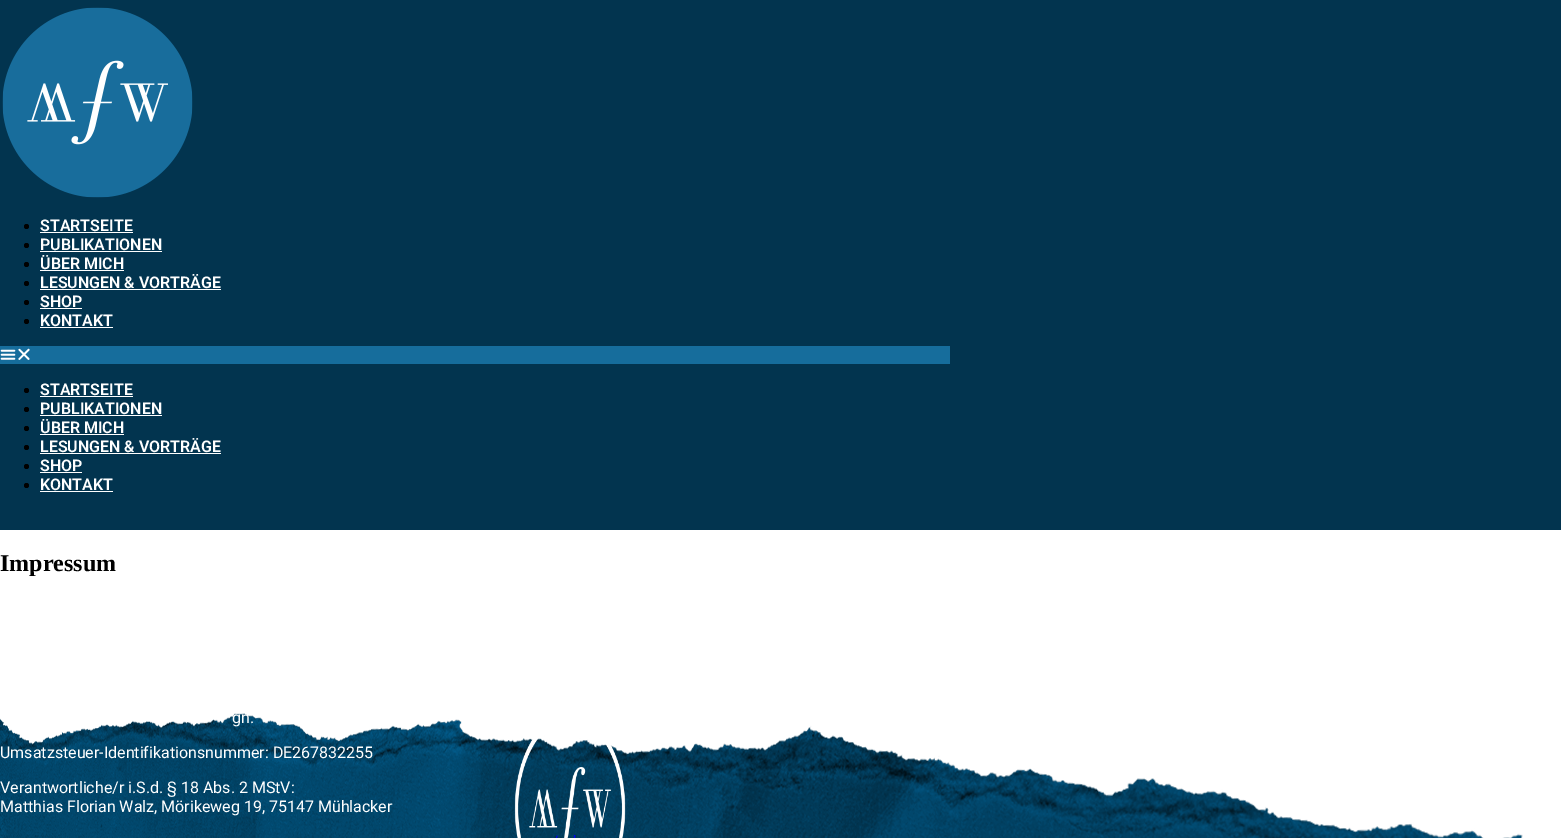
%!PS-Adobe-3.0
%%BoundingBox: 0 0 1561 838
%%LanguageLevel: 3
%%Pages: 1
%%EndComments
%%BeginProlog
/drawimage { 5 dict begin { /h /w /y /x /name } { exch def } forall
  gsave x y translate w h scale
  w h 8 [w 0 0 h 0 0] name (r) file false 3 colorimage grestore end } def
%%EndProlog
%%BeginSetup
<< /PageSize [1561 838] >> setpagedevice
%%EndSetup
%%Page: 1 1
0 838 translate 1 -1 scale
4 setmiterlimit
1 setgray
0 0 1561 838 rectfill
0.008 0.204 0.31 setrgbcolor
0 0 1561 530 rectfill
(images/1.raw) 2 7 191 191 drawimage
0 setgray
newpath 26.5 226.5 2.5 0 360 arc closepath fill
1 setgray
40 232 93 1 rectfill
0 setgray
newpath 26.5 245.5 2.5 0 360 arc closepath fill
1 setgray
40 251 122 1 rectfill
0 setgray
newpath 26.5 264.5 2.5 0 360 arc closepath fill
1 setgray
40 270 84 1 rectfill
0 setgray
newpath 26.5 283.5 2.5 0 360 arc closepath fill
1 setgray
40 289 181 1 rectfill
0 setgray
newpath 26.5 302.5 2.5 0 360 arc closepath fill
1 setgray
40 308 42 1 rectfill
0 setgray
newpath 26.5 321.5 2.5 0 360 arc closepath fill
1 setgray
40 327 73 1 rectfill
0.086 0.427 0.612 setrgbcolor
0 346 950 18 rectfill
(images/2.raw) 0 349 16 11 drawimage
(images/3.raw) 18 348 12 12 drawimage
0 setgray
newpath 26.5 390.5 2.5 0 360 arc closepath fill
1 setgray
40 396 93 1 rectfill
0 setgray
newpath 26.5 409.5 2.5 0 360 arc closepath fill
1 setgray
40 415 122 1 rectfill
0 setgray
newpath 26.5 428.5 2.5 0 360 arc closepath fill
1 setgray
40 434 84 1 rectfill
0 setgray
newpath 26.5 447.5 2.5 0 360 arc closepath fill
1 setgray
40 453 181 1 rectfill
0 setgray
newpath 26.5 466.5 2.5 0 360 arc closepath fill
1 setgray
40 472 42 1 rectfill
0 setgray
newpath 26.5 485.5 2.5 0 360 arc closepath fill
1 setgray
40 491 73 1 rectfill
(images/4.raw) 0 713 1523 125 drawimage
(images/5.raw) 514 738 112 100 drawimage
/Roboto-SemiBold [16 0 0 -16 0 0] selectfont
40 231 moveto (STARTSEITE) show
40 250 moveto (PUBLIKATIONEN) show
40 269 moveto (ÜBER MICH) show
40 288 moveto (LESUNGEN & VORTRÄGE) show
40 307 moveto (SHOP) show
40 326 moveto (KONTAKT) show
40 395 moveto (STARTSEITE) show
40 414 moveto (PUBLIKATIONEN) show
40 433 moveto (ÜBER MICH) show
40 452 moveto (LESUNGEN & VORTRÄGE) show
40 471 moveto (SHOP) show
40 490 moveto (KONTAKT) show
/LiberationSerif-Bold [24 0 0 -24 0 0] selectfont
0 setgray
0 571 moveto (Impressum) show
/Roboto-Regular [16 0 0 -16 0 0] selectfont
1 setgray
232 723 moveto (gn.) show
0 758 moveto (Umsatzsteuer-Identifikationsnummer: DE267832255) show
0 793 moveto (Verantwortliche/r i.S.d. § 18 Abs. 2 MStV:) show
0 812 moveto (Matthias Florian Walz, Mörikeweg 19, 75147 Mühlacker) show
showpage
%%EOF
